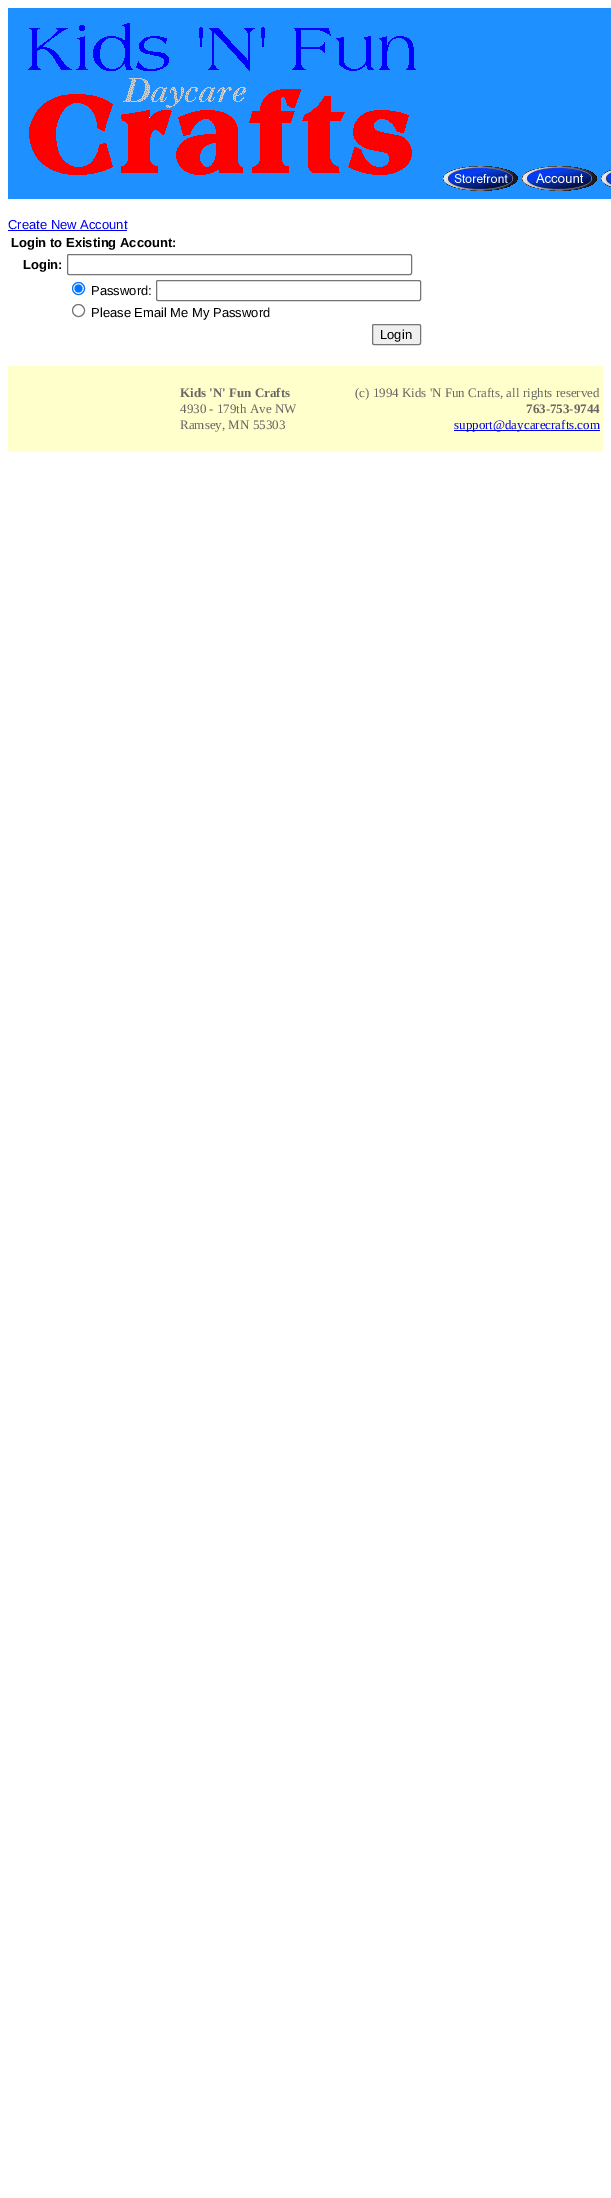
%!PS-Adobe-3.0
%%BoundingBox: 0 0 611 2198
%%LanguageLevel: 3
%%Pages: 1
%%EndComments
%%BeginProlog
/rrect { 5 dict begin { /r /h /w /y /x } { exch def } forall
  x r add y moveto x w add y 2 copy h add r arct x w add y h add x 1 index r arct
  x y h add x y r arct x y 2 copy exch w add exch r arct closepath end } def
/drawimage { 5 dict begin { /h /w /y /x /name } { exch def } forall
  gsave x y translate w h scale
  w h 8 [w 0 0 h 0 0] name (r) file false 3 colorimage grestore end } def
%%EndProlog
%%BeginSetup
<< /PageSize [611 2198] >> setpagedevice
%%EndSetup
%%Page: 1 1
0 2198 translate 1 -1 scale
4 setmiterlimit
1 setgray
0 0 611 2198 rectfill
0.118 0.565 1 setrgbcolor
8 8 603 191 rectfill
(images/1.raw) 28 23 388 152 drawimage
(images/2.raw) 443 166 75 25 drawimage
(images/3.raw) 522 166 75 25 drawimage
(images/4.raw) 601 170 10 17 drawimage
0 0 0.933 setrgbcolor
8 230 119 1 rectfill
0.463 setgray
67.5 254.5 344 20 1.5 rrect stroke
0 0.459 1 setrgbcolor
newpath 78.5 288.5 6 0 360 arc closepath stroke
newpath 78.5 288.5 4 0 360 arc closepath fill
0.463 setgray
156.5 280.5 264 20 1.5 rrect stroke
newpath 78.5 310.5 6 0 360 arc closepath stroke
0.937 setgray
372.5 324.5 48 20 1.5 rrect gsave fill grestore
0.463 setgray
stroke
1 1 0.8 setrgbcolor
8 366 595 86 rectfill
0 0 0.933 setrgbcolor
454 430 146 1 rectfill
/LiberationSans-Regular [13 0 0 -13 0 0] selectfont
8 229 moveto (Create New Account) show
/LiberationSans-Bold [13 0 0 -13 0 0] selectfont
0 setgray
11 247 moveto (Login to Existing Account:) show
23 269 moveto (Login:) show
/LiberationSans-Regular [13 0 0 -13 0 0] selectfont
91 295 moveto (Password:) show
91 317 moveto (Please Email Me My Password) show
380 339 moveto (Login) show
/LiberationSerif-Bold [13 0 0 -13 0 0] selectfont
0.4 setgray
180 397 moveto (Kids 'N' Fun Crafts) show
/LiberationSerif-Regular [13 0 0 -13 0 0] selectfont
180 413 moveto (4930 - 179th Ave NW) show
180 429 moveto (Ramsey, MN 55303) show
355 397 moveto (\(c\) 1994 Kids 'N Fun Crafts, all rights reserved) show
/LiberationSerif-Bold [13 0 0 -13 0 0] selectfont
526 413 moveto (763-753-9744) show
/LiberationSerif-Regular [13 0 0 -13 0 0] selectfont
0 0 0.933 setrgbcolor
454 429 moveto (support@daycarecrafts.com) show
showpage
%%EOF
